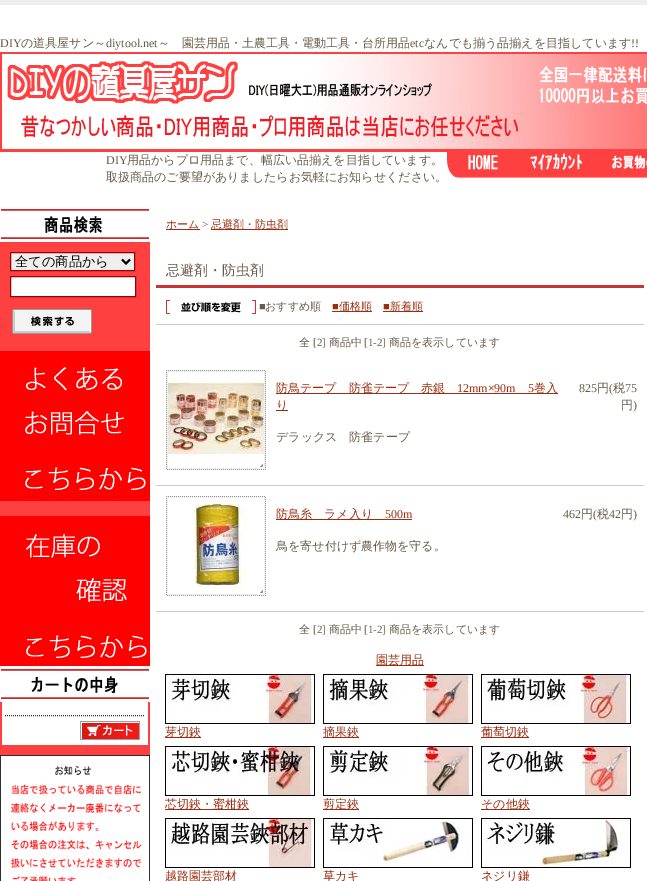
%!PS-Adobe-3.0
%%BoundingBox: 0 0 647 881
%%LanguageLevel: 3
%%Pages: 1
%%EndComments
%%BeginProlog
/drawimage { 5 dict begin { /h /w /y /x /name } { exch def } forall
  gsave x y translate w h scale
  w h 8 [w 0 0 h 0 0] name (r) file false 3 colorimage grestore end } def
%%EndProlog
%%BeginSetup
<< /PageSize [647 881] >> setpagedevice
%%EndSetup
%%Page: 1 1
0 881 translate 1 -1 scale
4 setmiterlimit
1 setgray
0 0 647 881 rectfill
0.933 setgray
0 0 647 5 rectfill
(images/1.raw) 0 52 647 100 drawimage
(images/2.raw) 447 152 68 26 drawimage
(images/3.raw) 515 152 82 26 drawimage
(images/4.raw) 597 152 50 26 drawimage
1 0.251 0.251 setrgbcolor
0 242 150 513 rectfill
(images/5.raw) 0 206 150 36 drawimage
0.937 setgray
newpath 10.5 252.5 moveto 134.5 252.5 lineto 134.5 270.5 lineto 10.5 270.5 lineto closepath gsave fill grestore
0.6 0 0 setrgbcolor
stroke
0 setgray
2 setlinewidth
newpath 122 259.5 moveto 126 263.5 lineto 130 259.5 lineto stroke
1 setgray
newpath 10.5 276.5 moveto 135.5 276.5 lineto 135.5 296.5 lineto 10.5 296.5 lineto closepath gsave fill grestore
0.6 0 0 setrgbcolor
1 setlinewidth
stroke
(images/6.raw) 12 309 80 25 drawimage
(images/7.raw) 0 351 150 150 drawimage
(images/8.raw) 0 516 150 150 drawimage
(images/9.raw) 0 666 150 36 drawimage
1 setgray
2 702 146 43 rectfill
0.2 setgray
[1 1] 0 setdash
newpath 5 715.5 moveto 145 715.5 lineto stroke
(images/10.raw) 80 721 60 19 drawimage
(images/11.raw) 0 755 150 126 drawimage
0.616 0.176 0.067 setrgbcolor
166 229 34 1 rectfill
211 229 77 1 rectfill
0.8 0.2 0.2 setrgbcolor
156 285 488 3 rectfill
0.8 setgray
156 324 488 1 rectfill
(images/12.raw) 166 300 90 14 drawimage
0.616 0.176 0.067 setrgbcolor
332 311 40 1 rectfill
383 311 40 1 rectfill
0.8 setgray
156 485 488 1 rectfill
(images/14.raw) 168 379 96 79 drawimage
(images/13.raw) 166 370 100 100 drawimage
0.616 0.176 0.067 setrgbcolor
276 393 282 1 rectfill
276 410 12 1 rectfill
0.8 setgray
156 611 488 1 rectfill
(images/16.raw) 192 498 55 94 drawimage
(images/15.raw) 166 496 100 100 drawimage
0.616 0.176 0.067 setrgbcolor
276 519 136 1 rectfill
376 665 48 1 rectfill
(images/17.raw) 165 674 150 50 drawimage
165 737 36 1 rectfill
(images/18.raw) 323 674 150 50 drawimage
323 737 36 1 rectfill
(images/19.raw) 481 674 150 50 drawimage
481 737 48 1 rectfill
(images/20.raw) 165 746 150 50 drawimage
165 809 84 1 rectfill
(images/21.raw) 323 746 150 50 drawimage
323 809 36 1 rectfill
(images/22.raw) 481 746 150 50 drawimage
481 809 49 1 rectfill
(images/23.raw) 165 818 150 50 drawimage
(images/24.raw) 323 818 150 50 drawimage
(images/25.raw) 481 818 150 50 drawimage
/LiberationSerif-Regular [12 0 0 -12 0 0] selectfont
0.412 0.357 0.282 setrgbcolor
0 47 moveto (DIY) show
/WenQuanYiZenHei-Medium [12 0 0 -12 0 0] selectfont
21 47 moveto (の道具屋サン～) show
/LiberationSerif-Regular [12 0 0 -12 0 0] selectfont
106 47 moveto (diytool.net) show
/WenQuanYiZenHei-Medium [12 0 0 -12 0 0] selectfont
158 47 moveto (～　園芸用品・土農工具・電動工具・台所用品) show
/LiberationSerif-Regular [12 0 0 -12 0 0] selectfont
410 47 moveto (etc) show
/WenQuanYiZenHei-Medium [12 0 0 -12 0 0] selectfont
424 47 moveto (なんでも揃う品揃えを目指しています) show
/LiberationSerif-Regular [12 0 0 -12 0 0] selectfont
631 47 moveto (!!) show
106 164 moveto (DIY) show
/WenQuanYiZenHei-Medium [12 0 0 -12 0 0] selectfont
127 164 moveto (用品からプロ用品まで、幅広い品揃えを目指しています。) show
106 181 moveto (取扱商品のご要望がありましたらお気軽にお知らせください。) show
/WenQuanYiZenHei-Medium [13.25 0 0 -13.25 0 0] selectfont
0 setgray
15 266 moveto (全ての商品から) show
/WenQuanYiZenHei-Medium [11 0 0 -11 0 0] selectfont
0.616 0.176 0.067 setrgbcolor
166 228 moveto (ホーム) show
/LiberationSerif-Regular [11 0 0 -11 0 0] selectfont
0.412 0.357 0.282 setrgbcolor
202 228 moveto (>) show
/WenQuanYiZenHei-Medium [11 0 0 -11 0 0] selectfont
0.616 0.176 0.067 setrgbcolor
211 228 moveto (忌避剤・防虫剤) show
/WenQuanYiZenHei-Medium [14 0 0 -14 0 0] selectfont
0.412 0.357 0.282 setrgbcolor
166 275 moveto (忌避剤・防虫剤) show
/LiberationSerif-Regular [11 0 0 -11 0 0] selectfont
259 310 moveto (■) show
/WenQuanYiZenHei-Medium [11 0 0 -11 0 0] selectfont
265 310 moveto (おすすめ順) show
/LiberationSerif-Regular [11 0 0 -11 0 0] selectfont
0.616 0.176 0.067 setrgbcolor
332 310 moveto (■) show
/WenQuanYiZenHei-Medium [11 0 0 -11 0 0] selectfont
339 310 moveto (価格順) show
/LiberationSerif-Regular [11 0 0 -11 0 0] selectfont
383 310 moveto (■) show
/WenQuanYiZenHei-Medium [11 0 0 -11 0 0] selectfont
390 310 moveto (新着順) show
0.412 0.357 0.282 setrgbcolor
299 346 moveto (全) show
/LiberationSerif-Regular [11 0 0 -11 0 0] selectfont
313 346 moveto ([2]) show
/WenQuanYiZenHei-Medium [11 0 0 -11 0 0] selectfont
329 346 moveto (商品中) show
/LiberationSerif-Regular [11 0 0 -11 0 0] selectfont
364 346 moveto ([1-2]) show
/WenQuanYiZenHei-Medium [11 0 0 -11 0 0] selectfont
389 346 moveto (商品を表示しています) show
/WenQuanYiZenHei-Medium [12 0 0 -12 0 0] selectfont
0.616 0.176 0.067 setrgbcolor
276 392 moveto (防鳥テープ　防雀テープ　赤銀) show
/LiberationSerif-Regular [12 0 0 -12 0 0] selectfont
457 392 moveto (12mm×90m) show
528 392 moveto (5) show
/WenQuanYiZenHei-Medium [12 0 0 -12 0 0] selectfont
534 392 moveto (巻入) show
276 409 moveto (り) show
/LiberationSerif-Regular [12 0 0 -12 0 0] selectfont
0.412 0.357 0.282 setrgbcolor
579 392 moveto (825) show
/WenQuanYiZenHei-Medium [12 0 0 -12 0 0] selectfont
597 392 moveto (円) show
/LiberationSerif-Regular [12 0 0 -12 0 0] selectfont
609 392 moveto (\() show
/WenQuanYiZenHei-Medium [12 0 0 -12 0 0] selectfont
613 392 moveto (税) show
/LiberationSerif-Regular [12 0 0 -12 0 0] selectfont
625 392 moveto (75) show
/WenQuanYiZenHei-Medium [12 0 0 -12 0 0] selectfont
621 409 moveto (円) show
/LiberationSerif-Regular [12 0 0 -12 0 0] selectfont
633 409 moveto (\)) show
/WenQuanYiZenHei-Medium [12 0 0 -12 0 0] selectfont
276 441 moveto (デラックス　防雀テープ) show
0.616 0.176 0.067 setrgbcolor
276 518 moveto (防鳥糸　ラメ入り) show
/LiberationSerif-Regular [12 0 0 -12 0 0] selectfont
385 518 moveto (500m) show
0.412 0.357 0.282 setrgbcolor
563 518 moveto (462) show
/WenQuanYiZenHei-Medium [12 0 0 -12 0 0] selectfont
581 518 moveto (円) show
/LiberationSerif-Regular [12 0 0 -12 0 0] selectfont
593 518 moveto (\() show
/WenQuanYiZenHei-Medium [12 0 0 -12 0 0] selectfont
597 518 moveto (税) show
/LiberationSerif-Regular [12 0 0 -12 0 0] selectfont
609 518 moveto (42) show
/WenQuanYiZenHei-Medium [12 0 0 -12 0 0] selectfont
621 518 moveto (円) show
/LiberationSerif-Regular [12 0 0 -12 0 0] selectfont
633 518 moveto (\)) show
/WenQuanYiZenHei-Medium [12 0 0 -12 0 0] selectfont
276 550 moveto (鳥を寄せ付けず農作物を守る。) show
/WenQuanYiZenHei-Medium [11 0 0 -11 0 0] selectfont
299 633 moveto (全) show
/LiberationSerif-Regular [11 0 0 -11 0 0] selectfont
313 633 moveto ([2]) show
/WenQuanYiZenHei-Medium [11 0 0 -11 0 0] selectfont
329 633 moveto (商品中) show
/LiberationSerif-Regular [11 0 0 -11 0 0] selectfont
364 633 moveto ([1-2]) show
/WenQuanYiZenHei-Medium [11 0 0 -11 0 0] selectfont
389 633 moveto (商品を表示しています) show
/WenQuanYiZenHei-Medium [12 0 0 -12 0 0] selectfont
0.616 0.176 0.067 setrgbcolor
376 664 moveto (園芸用品) show
165 736 moveto (芽切鋏) show
323 736 moveto (摘果鋏) show
481 736 moveto (葡萄切鋏) show
165 808 moveto (芯切鋏・蜜柑鋏) show
323 808 moveto (剪定鋏) show
481 808 moveto (その他鋏) show
165 880 moveto (越路園芸部材) show
323 880 moveto (草カキ) show
481 880 moveto (ネジリ鎌) show
showpage
%%EOF
